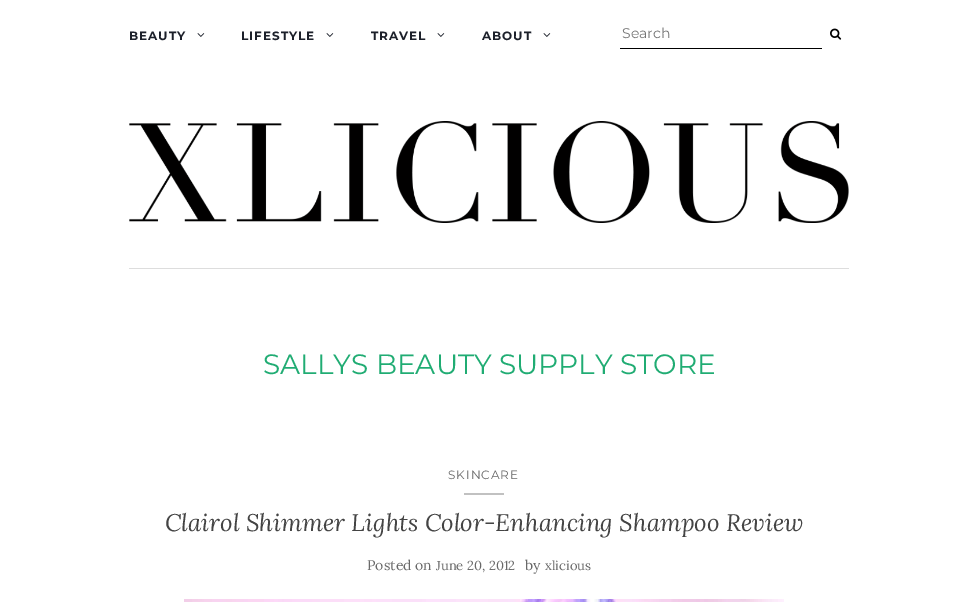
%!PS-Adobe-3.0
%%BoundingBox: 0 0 978 602
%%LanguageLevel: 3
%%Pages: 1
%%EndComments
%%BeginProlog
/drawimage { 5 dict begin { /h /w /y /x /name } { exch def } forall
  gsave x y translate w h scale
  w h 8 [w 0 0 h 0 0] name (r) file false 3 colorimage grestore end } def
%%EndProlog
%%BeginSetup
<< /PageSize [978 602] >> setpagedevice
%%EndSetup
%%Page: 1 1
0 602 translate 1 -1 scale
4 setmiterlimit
1 setgray
0 0 978 602 rectfill
(images/1.raw) 197 33 8 4 drawimage
(images/1.raw) 326 33 8 4 drawimage
(images/1.raw) 437 33 8 4 drawimage
(images/1.raw) 543 33 8 4 drawimage
0 setgray
620 48 202 1 rectfill
(images/2.raw) 830 28 12 12 drawimage
(images/3.raw) 129 121 720 102 drawimage
0.867 setgray
129 268 720 1 rectfill
0.757 setgray
464 493 40 2 rectfill
(images/4.raw) 184 599 600 3 drawimage
/Montserrat-Bold [12 0 0 -12 0 0] selectfont
0.11 0.125 0.165 setrgbcolor
129 40 moveto 1 0 (BEAUTY) ashow
241 40 moveto 1 0 (LIFESTYLE) ashow
371 40 moveto 1 0 (TRAVEL) ashow
482 40 moveto 1 0 (ABOUT) ashow
/Montserrat-Regular [14 0 0 -14 0 0] selectfont
0.459 setgray
622 38 moveto (Search) show
/Montserrat-Regular [28 0 0 -28 0 0] selectfont
0.125 0.675 0.451 setrgbcolor
263 374 moveto (SALLYS BEAUTY SUPPLY STORE) show
/Montserrat-Regular [12 0 0 -12 0 0] selectfont
0.412 setgray
448 479 moveto 1 0 (SKINCARE) ashow
/Lora-Italic [24 0 0 -24 0 0] selectfont
0.267 setgray
165 531 moveto (Clairol Shimmer Lights Color-Enhancing Shampoo Review) show
/Lora-Regular [14 0 0 -14 0 0] selectfont
0.412 setgray
367 570 moveto (Posted on) show
/Lora-Regular [13 0 0 -13 0 0] selectfont
436 570 moveto (June 20, 2012) show
/Lora-Regular [14 0 0 -14 0 0] selectfont
525 570 moveto (by) show
/Lora-Regular [13 0 0 -13 0 0] selectfont
545 570 moveto (xlicious) show
showpage
%%EOF
